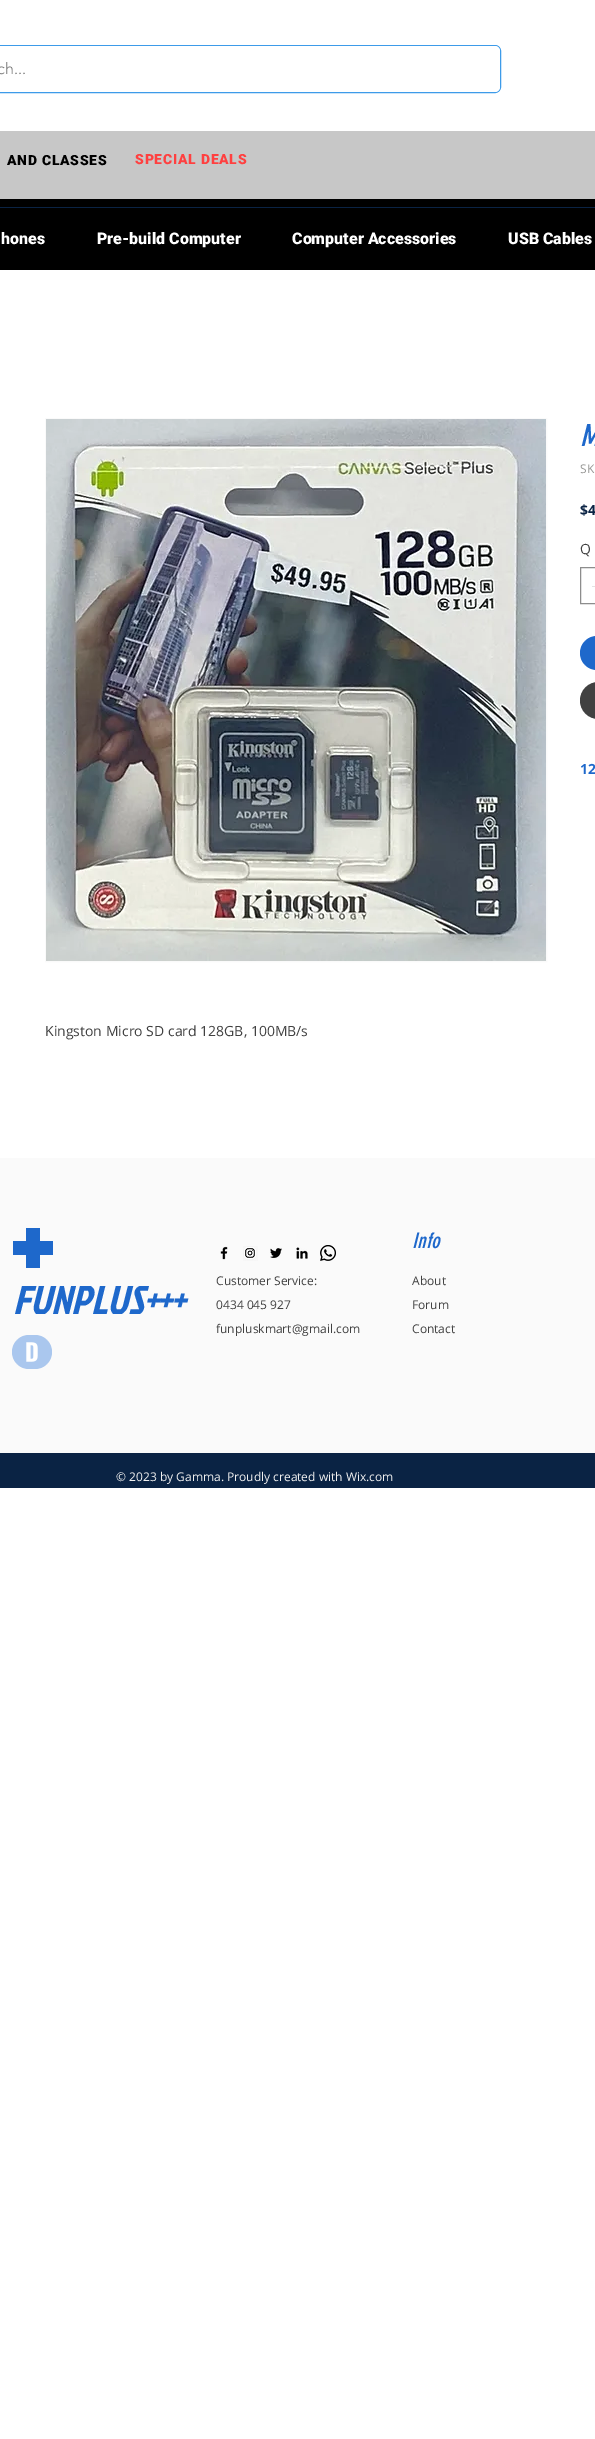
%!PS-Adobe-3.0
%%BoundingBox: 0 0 595 2439
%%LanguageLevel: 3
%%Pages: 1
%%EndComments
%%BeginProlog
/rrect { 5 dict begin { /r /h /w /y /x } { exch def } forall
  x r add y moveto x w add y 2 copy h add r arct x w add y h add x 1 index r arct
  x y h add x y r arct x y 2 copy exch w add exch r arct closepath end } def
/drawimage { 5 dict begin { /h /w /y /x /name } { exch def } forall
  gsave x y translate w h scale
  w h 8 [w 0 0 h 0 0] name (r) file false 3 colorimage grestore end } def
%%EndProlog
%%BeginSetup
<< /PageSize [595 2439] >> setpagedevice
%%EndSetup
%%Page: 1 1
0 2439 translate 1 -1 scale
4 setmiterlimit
1 setgray
0 0 595 2439 rectfill
0.239 0.608 0.914 setrgbcolor
-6.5 45.5 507 47 5.5 rrect stroke
1 setgray
-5 46 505 46 5 rrect fill
0.78 setgray
0 131 595 68 rectfill
0 setgray
0 199 595 71 rectfill
0.039 0.137 0.267 setrgbcolor
0 207 595 1 rectfill
0.553 setgray
580.5 567.5 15 36 rectstroke
0.89 setgray
592 586 3 1 rectfill
0.118 0.408 0.796 setrgbcolor
580 636 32 34 17 rrect fill
0.255 setgray
580 682 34 37 18.5 rrect fill
0.98 setgray
45.5 418.5 501 543 rectstroke
(images/1.raw) 46 419 500 542 drawimage
0 1158 595 295 rectfill
0.118 0.408 0.796 setrgbcolor
newpath 53 1255 moveto 53 1241 lineto 40 1241 lineto 40 1228 lineto 26 1228 lineto 26 1241 lineto 13 1241 lineto 13 1255 lineto 26 1255 lineto 26 1268 lineto 40 1268 lineto 40 1255 lineto closepath fill
0.667 0.78 0.933 setrgbcolor
12 1335 40 34 17 rrect fill
(images/2.raw) 26 1342 12 20 drawimage
(images/3.raw) 220 1246 8 14 drawimage
(images/4.raw) 243 1246 15 15 drawimage
(images/5.raw) 270 1248 12 10 drawimage
(images/6.raw) 296 1247 12 12 drawimage
(images/7.raw) 320 1245 16 16 drawimage
0.039 0.137 0.267 setrgbcolor
0 1453 595 35 rectfill
/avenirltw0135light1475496-Light [16 0 0 -16 0 0] selectfont
0.471 setgray
-3 74 moveto (ch...) show
/Roboto-Black [14 0 0 -14 0 0] selectfont
0 setgray
7 165 moveto 0.75 0 (AND CLASSES) ashow
1 0.251 0.251 setrgbcolor
135 164 moveto 0.75 0 (SPECIAL DEALS) ashow
/Roboto-Black [16 0 0 -16 0 0] selectfont
1 setgray
1 244 moveto (hones) show
97 244 moveto (Pre-build Computer) show
292 244 moveto (Computer Accessories) show
508 244 moveto (USB Cables) show
/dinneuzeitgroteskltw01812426-Italic [30 0 0 -30 0 0] selectfont
0.118 0.408 0.796 setrgbcolor
580 446 moveto (M) show
/OpenSans-Regular [12 0 0 -12 0 0] selectfont
0.6 0.6 0.592 setrgbcolor
580 473 moveto (SK) show
/OpenSans-Bold [14 0 0 -14 0 0] selectfont
0.039 0.137 0.267 setrgbcolor
580 515 moveto ($4) show
/OpenSans-Regular [14 0 0 -14 0 0] selectfont
0.255 setgray
580 554 moveto (Q) show
/OpenSans-Bold [14 0 0 -14 0 0] selectfont
0.118 0.408 0.796 setrgbcolor
580 774 moveto (12) show
/OpenSans-Regular [14 0 0 -14 0 0] selectfont
0.255 setgray
45 1036 moveto (Kingston Micro SD card 128GB, 100MB/s) show
/JockeyOne-Italic [40 0 0 -40 0 0] selectfont
0.118 0.408 0.796 setrgbcolor
13 1314 moveto (FUNPLUS+++) show
/OpenSans-Regular [12 0 0 -12 0 0] selectfont
0.255 setgray
216 1285 moveto (Customer Service:) show
216 1309 moveto (0434 045 927) show
216 1333 moveto (funpluskmart@gmail.com) show
/dinneuzeitgroteskltw01812426-Italic [21 0 0 -21 0 0] selectfont
0.118 0.408 0.796 setrgbcolor
412 1248 moveto (Info) show
/OpenSans-Regular [12 0 0 -12 0 0] selectfont
0.255 setgray
412 1285 moveto (About) show
412 1309 moveto (Forum) show
412 1333 moveto (Contact) show
0.941 setgray
116 1481 moveto (© 2023 by Gamma. Proudly created with Wix.com) show
showpage
%%EOF
